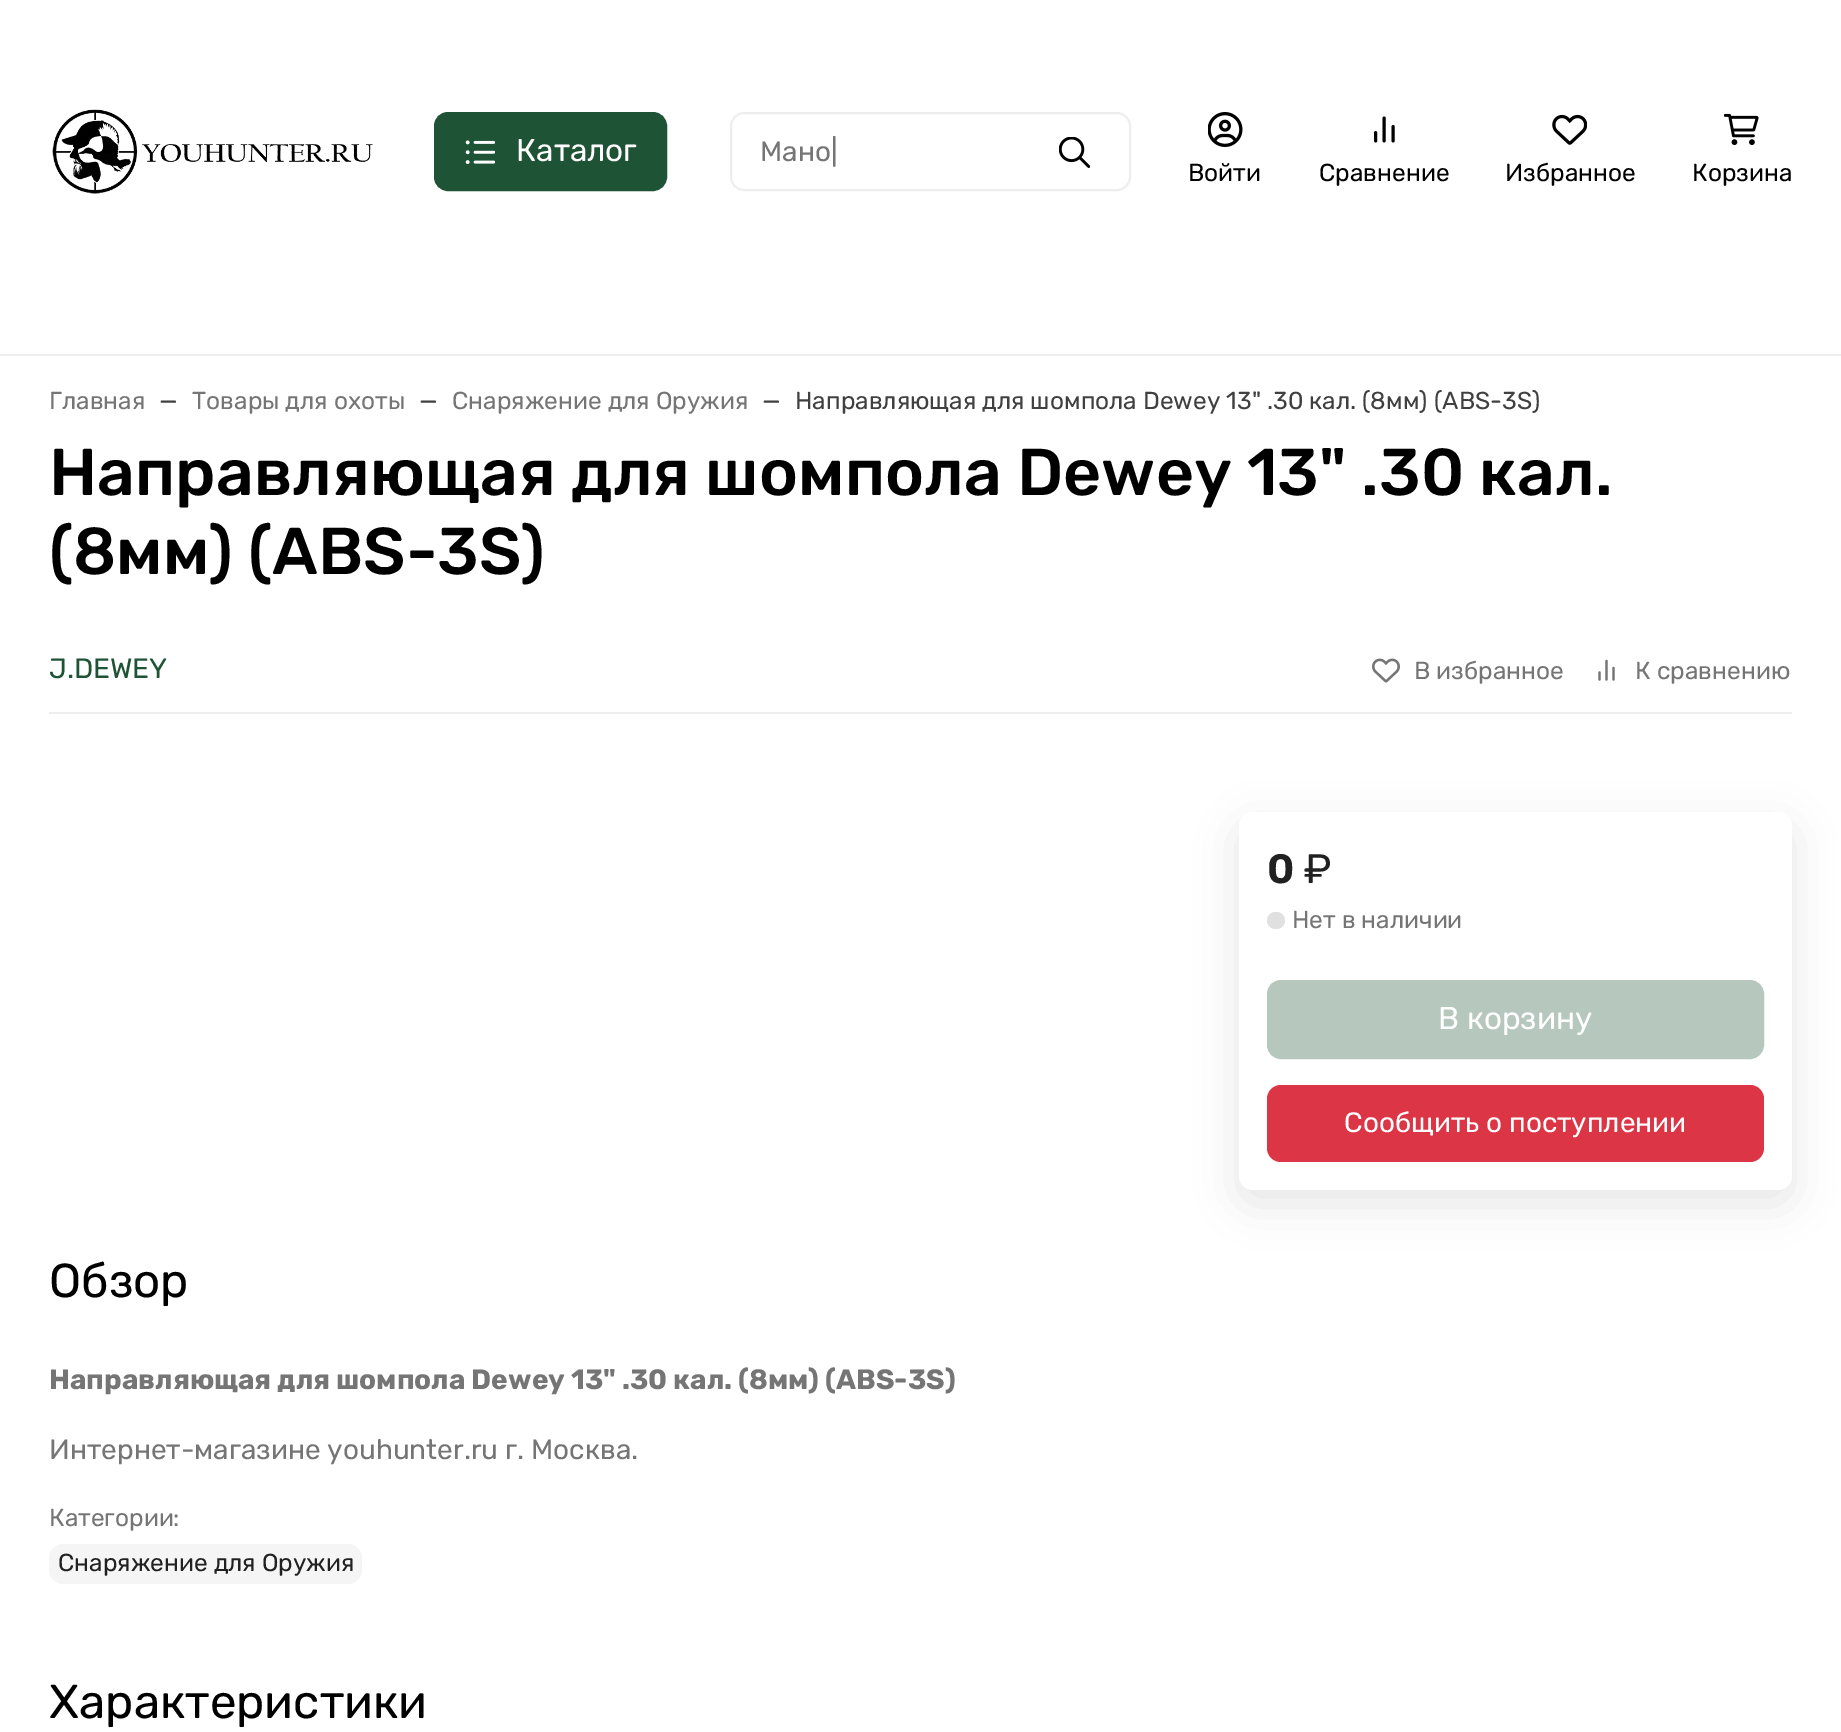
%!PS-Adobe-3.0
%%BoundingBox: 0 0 1841 1732
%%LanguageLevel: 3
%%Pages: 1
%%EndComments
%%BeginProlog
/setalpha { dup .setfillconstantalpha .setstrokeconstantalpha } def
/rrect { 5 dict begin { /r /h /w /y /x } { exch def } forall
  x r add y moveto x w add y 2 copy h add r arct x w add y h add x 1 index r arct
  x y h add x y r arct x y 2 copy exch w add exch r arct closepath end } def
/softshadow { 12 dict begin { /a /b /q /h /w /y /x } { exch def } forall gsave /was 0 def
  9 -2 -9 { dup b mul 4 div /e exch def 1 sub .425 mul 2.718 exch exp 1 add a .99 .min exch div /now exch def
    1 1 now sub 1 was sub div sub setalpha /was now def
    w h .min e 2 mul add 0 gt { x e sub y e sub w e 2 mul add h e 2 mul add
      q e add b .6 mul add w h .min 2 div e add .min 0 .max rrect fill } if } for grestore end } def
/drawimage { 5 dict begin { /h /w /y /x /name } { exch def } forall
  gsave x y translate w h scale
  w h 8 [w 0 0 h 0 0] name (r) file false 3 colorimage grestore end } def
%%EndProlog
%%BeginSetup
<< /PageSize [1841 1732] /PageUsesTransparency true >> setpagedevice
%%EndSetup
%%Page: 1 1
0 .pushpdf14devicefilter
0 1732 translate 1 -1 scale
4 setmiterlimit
1 setgray
0 0 1841 1732 rectfill
0.933 setgray
0 354 1841 2 rectfill
(images/1.raw) 52 109 321 85 drawimage
0.118 0.325 0.208 setrgbcolor
435 113 231 77 13 rrect gsave fill grestore
2 setlinewidth
stroke
(images/2.raw) 465 140 30 24 drawimage
0.933 setgray
731 113 399 77 13 rrect stroke
(images/3.raw) 1059 137 31 31 drawimage
(images/4.raw) 1208 112 35 35 drawimage
0 setgray
2.9 setlinewidth
1 setlinecap
1 setlinejoin
newpath 1393 141 moveto 1393 126.5 lineto 1384 141 moveto 1384 118 lineto 1375.5 141 moveto 1375.5 132.5 lineto stroke
(images/5.raw) 1552 114 35 31 drawimage
(images/6.raw) 1724 113 35 32 drawimage
0.933 setgray
49 712 1743 2 rectfill
(images/7.raw) 1372 658 28 25 drawimage
0.459 setgray
2.3 setlinewidth
newpath 1613.5 679.5 moveto 1613.5 668 lineto 1606.5 679.5 moveto 1606.5 661 lineto 1599.5 679.5 moveto 1599.5 672.5 lineto stroke
0 setgray
1239 826 553 378 14 21 0.1 softshadow
1 setgray
1239 812 553 378 14 rrect fill
0.878 setgray
1267 912 18 17 8.5 rrect fill
0.714 0.78 0.741 setrgbcolor
1268 981 495 77 13 rrect gsave fill grestore
2 setlinewidth
0 setlinecap
0 setlinejoin
stroke
0.863 0.208 0.271 setrgbcolor
1267 1085 497 77 14 rrect fill
0.961 setgray
49 1544 313 40 14 rrect fill
/Rubik-Light [31.5 0 0 -31.5 0 0] selectfont
1 setgray
516 161 moveto (Каталог) show
/Rubik-Light [28 0 0 -28 0 0] selectfont
0.459 setgray
760 161 moveto (Мано|) show
/Rubik-Light [24.5 0 0 -24.5 0 0] selectfont
0 setgray
1188 181 moveto (Войти) show
1319 181 moveto (Сравнение) show
1505 181 moveto (Избранное) show
1692 181 moveto (Корзина) show
0.459 setgray
49 409 moveto (Главная) show
0.251 setgray
159 409 moveto (—) show
0.459 setgray
192 409 moveto (Товары для охоты) show
0.251 setgray
419 409 moveto (—) show
0.459 setgray
452 409 moveto (Снаряжение для Оружия) show
0.251 setgray
762 409 moveto (—) show
795 409 moveto (Направляющая для шомпола Dewey 13" .30 кал. \(8мм\) \(ABS-3S\)) show
/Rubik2-Light [66.1 0 0 -66.1 0 0] selectfont
0 setgray
49 495 moveto (Направляющая для шомпола Dewey 13" .30 кал.) show
49 574 moveto (\(8мм\) \(ABS-3S\)) show
/Rubik-Light [28 0 0 -28 0 0] selectfont
0.118 0.325 0.208 setrgbcolor
49 678 moveto (J.DEWEY) show
/Rubik-Light [24.5 0 0 -24.5 0 0] selectfont
0.459 setgray
1414 679 moveto (В избранное) show
1635 679 moveto (К сравнению) show
/Rubik-SemiBold [41 0 0 -41 0 0] selectfont
0.129 setgray
1267 883 moveto (0) show
/Rubik-Regular [41 0 0 -41 0 0] selectfont
1304 883 moveto (₽) show
/Rubik-Light [24.5 0 0 -24.5 0 0] selectfont
0.459 setgray
1292 928 moveto (Нет в наличии) show
/Rubik-Light [31.5 0 0 -31.5 0 0] selectfont
1 setgray
1438 1029 moveto (В корзину) show
/Rubik-Light [28 0 0 -28 0 0] selectfont
1344 1132 moveto (Сообщить о поступлении) show
/Rubik-Light [47.5 0 0 -47.5 0 0] selectfont
0 setgray
49 1297 moveto (Обзор) show
/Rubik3-Light [28 0 0 -28 0 0] selectfont
0.459 setgray
49 1389 moveto (Направляющая для шомпола Dewey 13" .30 кал. \(8мм\) \(ABS-3S\)) show
/Rubik-Light [28 0 0 -28 0 0] selectfont
49 1459 moveto (Интернет-магазине youhunter.ru г. Москва.) show
/Rubik-Light [24.5 0 0 -24.5 0 0] selectfont
49 1526 moveto (Категории:) show
0.129 setgray
58 1571 moveto (Снаряжение для Оружия) show
/Rubik-Light [47.5 0 0 -47.5 0 0] selectfont
0 setgray
49 1718 moveto (Характеристики) show
.poppdf14devicefilter showpage
%%EOF
